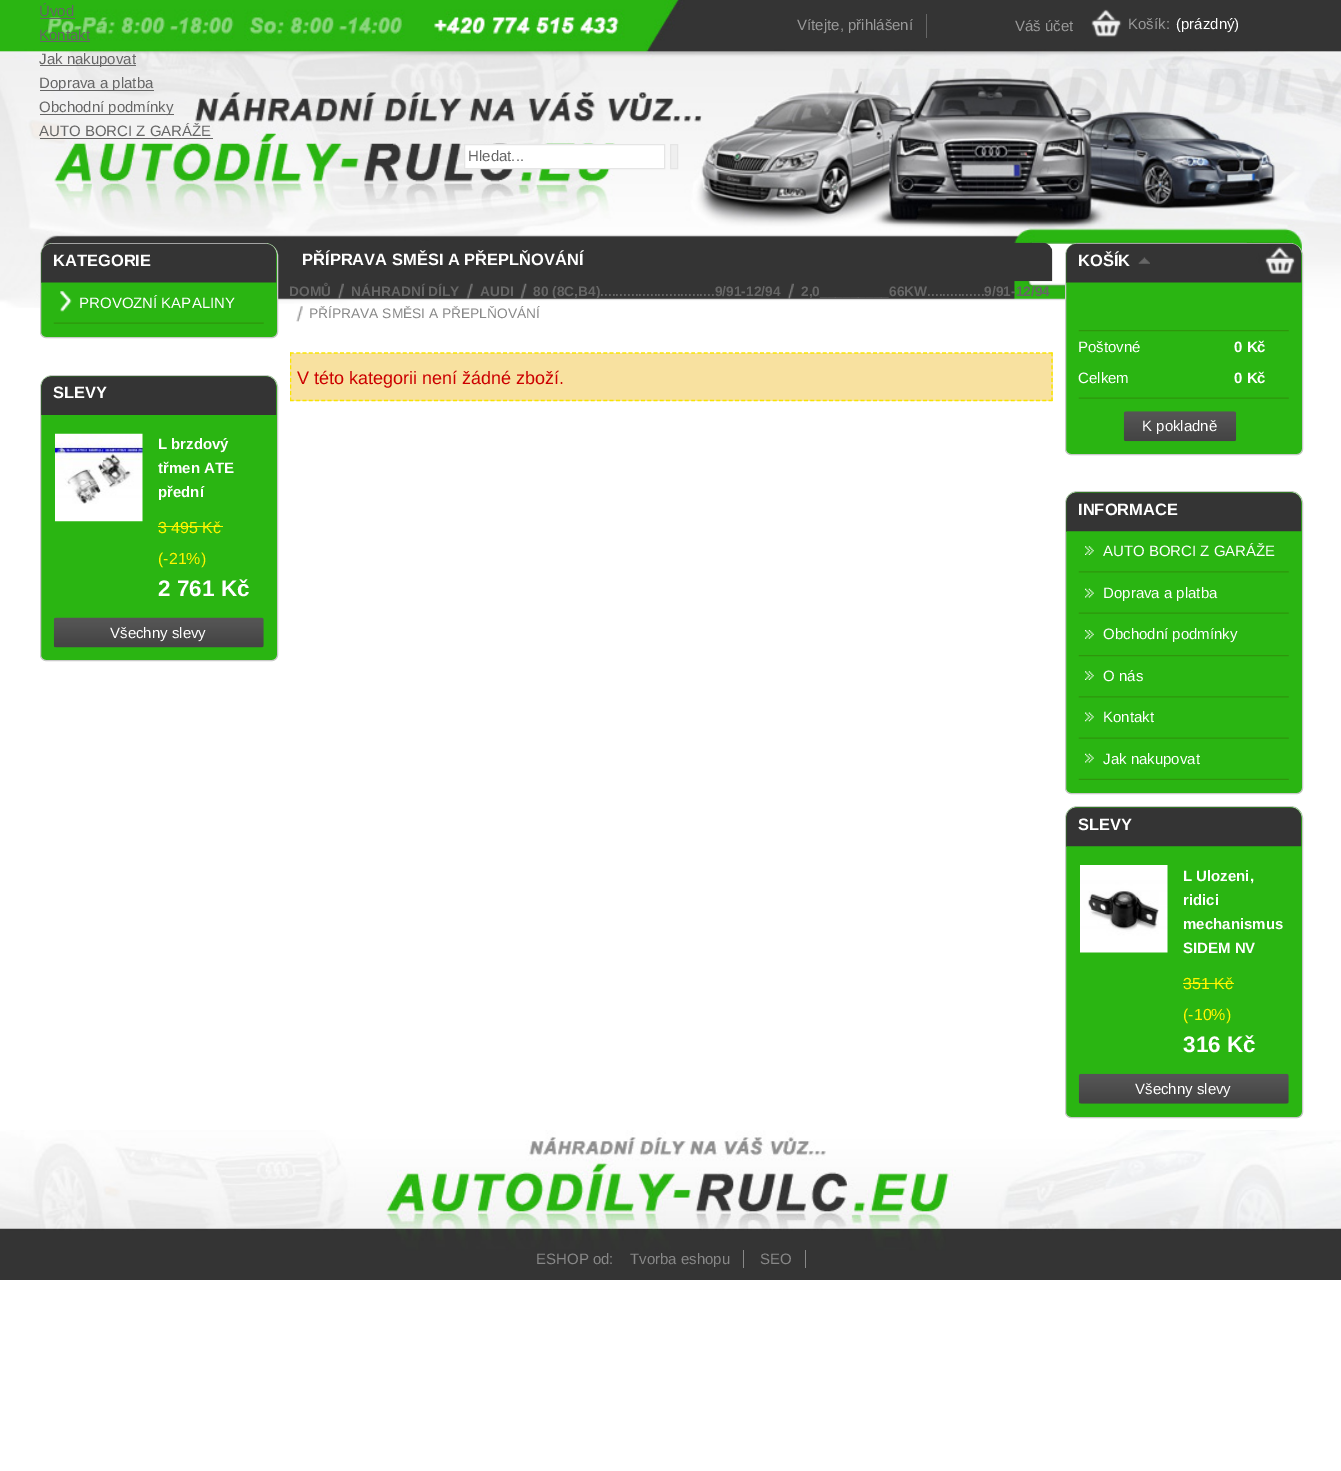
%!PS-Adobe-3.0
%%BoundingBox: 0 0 1341 1471
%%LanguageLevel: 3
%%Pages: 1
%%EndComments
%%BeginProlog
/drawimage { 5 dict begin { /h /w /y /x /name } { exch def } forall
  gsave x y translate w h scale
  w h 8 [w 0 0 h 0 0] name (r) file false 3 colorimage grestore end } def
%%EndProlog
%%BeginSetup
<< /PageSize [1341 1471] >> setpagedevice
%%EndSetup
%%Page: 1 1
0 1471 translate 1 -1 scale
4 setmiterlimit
1 setgray
0 0 1341 1471 rectfill
(images/1.raw) 0 0 1341 308 drawimage
0.4 setgray
40 18 35 1 rectfill
40 41 50 1 rectfill
40 65 96 1 rectfill
40 90 114 1 rectfill
40 114 134 1 rectfill
40 138 173 1 rectfill
1 setgray
newpath 464.5 144.5 moveto 664.5 144.5 lineto 664.5 168.5 lineto 464.5 168.5 lineto closepath gsave fill grestore
0.898 setgray
stroke
0.937 setgray
newpath 670.5 144.5 moveto 677.5 144.5 lineto 677.5 168.5 lineto 670.5 168.5 lineto closepath gsave fill grestore
0.898 setgray
stroke
0.4 setgray
926 14 1 24 rectfill
(images/2.raw) 1091 9 31 28 drawimage
0.165 0.71 0.071 setrgbcolor
newpath 53 243.5 moveto 265 243.5 lineto 272 243.5 277.5 249 277.5 256 curveto 277.5 332 lineto 277.5 335 275 337.5 272 337.5 curveto 46 337.5 lineto 43 337.5 40.5 335 40.5 332 curveto 40.5 256 lineto 40.5 249 46 243.5 53 243.5 curveto closepath gsave fill grestore
0.792 setgray
stroke
(images/3.raw) 41 243 236 40 drawimage
(images/4.raw) 53 322 211 2 drawimage
(images/5.raw) 60 291 12 21 drawimage
0.165 0.71 0.071 setrgbcolor
newpath 53 375.5 moveto 265 375.5 lineto 272 375.5 277.5 381 277.5 388 curveto 277.5 655 lineto 277.5 658 275 660.5 272 660.5 curveto 46 660.5 lineto 43 660.5 40.5 658 40.5 655 curveto 40.5 388 lineto 40.5 381 46 375.5 53 375.5 curveto closepath gsave fill grestore
0.792 setgray
stroke
(images/6.raw) 41 376 236 39 drawimage
(images/7.raw) 55 433 88 89 drawimage
1 0.965 0 setrgbcolor
158 526 65 1 rectfill
(images/8.raw) 53 617 211 31 drawimage
(images/9.raw) 1014 242 39 40 drawimage
(images/10.raw) 337 283 7 16 drawimage
(images/11.raw) 466 283 7 16 drawimage
(images/12.raw) 520 283 7 16 drawimage
(images/13.raw) 787 283 7 16 drawimage
(images/14.raw) 296 306 7 16 drawimage
0.973 0.882 0.627 setrgbcolor
290 353 763 48 rectfill
0.976 0.894 0 setrgbcolor
1.2 setlinewidth
[3.75 2.52] 0 setdash
newpath 290 353 moveto 1052.5 353 lineto stroke
[3.75 2.68] 0 setdash
newpath 1052 352.5 moveto 1052 401 lineto stroke
[3.75 2.52] 0 setdash
newpath 290 400.5 moveto 1052.5 400.5 lineto stroke
gsave
290 243 763 161 rectclip
[3.75 2.68] 0 setdash
newpath 290.5 352.5 moveto 290.5 401 lineto stroke
grestore
0.165 0.71 0.071 setrgbcolor
newpath 1078 243.5 moveto 1290 243.5 lineto 1297 243.5 1302.5 249 1302.5 256 curveto 1302.5 449 lineto 1302.5 452 1300 454.5 1297 454.5 curveto 1071 454.5 lineto 1068 454.5 1065.5 452 1065.5 449 curveto 1065.5 256 lineto 1065.5 249 1071 243.5 1078 243.5 curveto closepath gsave fill grestore
0.792 setgray
1 setlinewidth
[] 0 setdash
stroke
(images/15.raw) 1066 243 236 40 drawimage
(images/16.raw) 1138 257 12 7 drawimage
(images/17.raw) 1078 330 211 2 drawimage
(images/4.raw) 1078 397 211 2 drawimage
(images/18.raw) 1123 411 114 31 drawimage
0.165 0.71 0.071 setrgbcolor
newpath 1078 491.5 moveto 1290 491.5 lineto 1297 491.5 1302.5 497 1302.5 504 curveto 1302.5 788 lineto 1302.5 791 1300 793.5 1297 793.5 curveto 1071 793.5 lineto 1068 793.5 1065.5 791 1065.5 788 curveto 1065.5 504 lineto 1065.5 497 1071 491.5 1078 491.5 curveto closepath gsave fill grestore
0.792 setgray
stroke
(images/19.raw) 1066 492 236 40 drawimage
(images/20.raw) 1078 571 211 2 drawimage
(images/21.raw) 1085 546 9 9 drawimage
(images/4.raw) 1078 612 211 2 drawimage
(images/22.raw) 1085 588 9 10 drawimage
(images/17.raw) 1078 655 211 2 drawimage
(images/23.raw) 1085 630 9 9 drawimage
(images/20.raw) 1078 696 211 2 drawimage
(images/21.raw) 1085 671 9 9 drawimage
(images/4.raw) 1078 737 211 2 drawimage
(images/24.raw) 1085 712 9 10 drawimage
(images/25.raw) 1078 778 211 2 drawimage
(images/22.raw) 1085 753 9 10 drawimage
0.165 0.71 0.071 setrgbcolor
newpath 1078 806.5 moveto 1290 806.5 lineto 1297 806.5 1302.5 812 1302.5 819 curveto 1302.5 1112 lineto 1302.5 1115 1300 1117.5 1297 1117.5 curveto 1071 1117.5 lineto 1068 1117.5 1065.5 1115 1065.5 1112 curveto 1065.5 819 lineto 1065.5 812 1071 806.5 1078 806.5 curveto closepath gsave fill grestore
0.792 setgray
stroke
(images/19.raw) 1066 807 236 40 drawimage
(images/26.raw) 1080 865 88 88 drawimage
1 0.965 0 setrgbcolor
1183 983 51 1 rectfill
(images/27.raw) 1078 1073 211 31 drawimage
(images/28.raw) 0 1130 1341 150 drawimage
0.533 setgray
743 1250 1 18 rectfill
805 1250 1 18 rectfill
/LiberationSans-Regular [15 0 0 -15 0 0] selectfont
0.4 setgray
39 16 moveto (Úvod) show
39 40 moveto (Kontakt) show
39 64 moveto (Jak nakupovat) show
39 88 moveto (Doprava a platba) show
39 112 moveto (Obchodní podmínky) show
39 136 moveto (AUTO BORCI Z GARÁŽE) show
468 161 moveto (Hledat...) show
0.6 setgray
797 30 moveto (Vítejte, přihlášení) show
1015 31 moveto (Váš účet) show
1128 29 moveto (Košík:) show
1 setgray
1176 29 moveto (\(prázdný\)) show
/LiberationSans-Bold [16.5 0 0 -16.5 0 0] selectfont
53 266 moveto (KATEGORIE) show
/LiberationSans-Regular [15 0 0 -15 0 0] selectfont
79 308 moveto (PROVOZNÍ KAPALINY) show
/LiberationSans-Bold [16.5 0 0 -16.5 0 0] selectfont
53 398 moveto (SLEVY) show
/LiberationSans-Bold [15 0 0 -15 0 0] selectfont
158 449 moveto (L brzdový) show
158 473 moveto (třmen ATE) show
158 497 moveto (přední) show
/LiberationSans-Regular [16 0 0 -16 0 0] selectfont
1 0.965 0 setrgbcolor
158 533 moveto (3 495 Kč) show
158 564 moveto (\(-21%\)) show
/LiberationSans-Bold [22.5 0 0 -22.5 0 0] selectfont
1 setgray
158 596 moveto (2 761 Kč) show
/LiberationSans-Regular [15 0 0 -15 0 0] selectfont
110 638 moveto (Všechny slevy) show
/LiberationSans-Bold [16.5 0 0 -16.5 0 0] selectfont
302 265 moveto (PŘÍPRAVA SMĚSI A PŘEPLŇOVÁNÍ) show
/LiberationSans-Bold [13.75 0 0 -13.75 0 0] selectfont
0.4 setgray
289 296 moveto (DOMŮ) show
351 296 moveto (NÁHRADNÍ DÍLY) show
480 296 moveto (AUDI) show
533 296 moveto (80 \(8C,B4\)..............................9/91-12/94) show
801 296 moveto (2,0_________66KW...............9/91-12/94) show
/LiberationSans-Regular [13.75 0 0 -13.75 0 0] selectfont
0.533 setgray
309 318 moveto (PŘÍPRAVA SMĚSI A PŘEPLŇOVÁNÍ) show
/LiberationSans-Regular [18 0 0 -18 0 0] selectfont
0.8 0 0 setrgbcolor
297 384 moveto (V této kategorii není žádné zboží.) show
/LiberationSans-Bold [16.5 0 0 -16.5 0 0] selectfont
1 setgray
1078 266 moveto (KOŠÍK) show
/LiberationSans-Regular [15 0 0 -15 0 0] selectfont
1078 352 moveto (Poštovné) show
/LiberationSans-Bold [15 0 0 -15 0 0] selectfont
1234 352 moveto (0 Kč) show
/LiberationSans-Regular [15 0 0 -15 0 0] selectfont
1078 383 moveto (Celkem) show
/LiberationSans-Bold [15 0 0 -15 0 0] selectfont
1234 383 moveto (0 Kč) show
/LiberationSans-Regular [15 0 0 -15 0 0] selectfont
1142 431 moveto (K pokladně) show
/LiberationSans-Bold [16.5 0 0 -16.5 0 0] selectfont
1078 515 moveto (INFORMACE) show
/LiberationSans-Regular [15 0 0 -15 0 0] selectfont
1103 556 moveto (AUTO BORCI Z GARÁŽE) show
1103 598 moveto (Doprava a platba) show
1103 639 moveto (Obchodní podmínky) show
1103 681 moveto (O nás) show
1103 722 moveto (Kontakt) show
1103 764 moveto (Jak nakupovat) show
/LiberationSans-Bold [16.5 0 0 -16.5 0 0] selectfont
1078 830 moveto (SLEVY) show
/LiberationSans-Bold [15 0 0 -15 0 0] selectfont
1183 881 moveto (L Ulozeni,) show
1183 905 moveto (ridici) show
1183 929 moveto (mechanismus) show
1183 953 moveto (SIDEM NV) show
/LiberationSans-Regular [16 0 0 -16 0 0] selectfont
1 0.965 0 setrgbcolor
1183 989 moveto (351 Kč) show
1183 1020 moveto (\(-10%\)) show
/LiberationSans-Bold [22.5 0 0 -22.5 0 0] selectfont
1 setgray
1183 1052 moveto (316 Kč) show
/LiberationSans-Regular [15 0 0 -15 0 0] selectfont
1135 1094 moveto (Všechny slevy) show
0.533 setgray
536 1264 moveto (ESHOP od:) show
630 1264 moveto (Tvorba eshopu) show
760 1264 moveto (SEO) show
showpage
%%EOF
